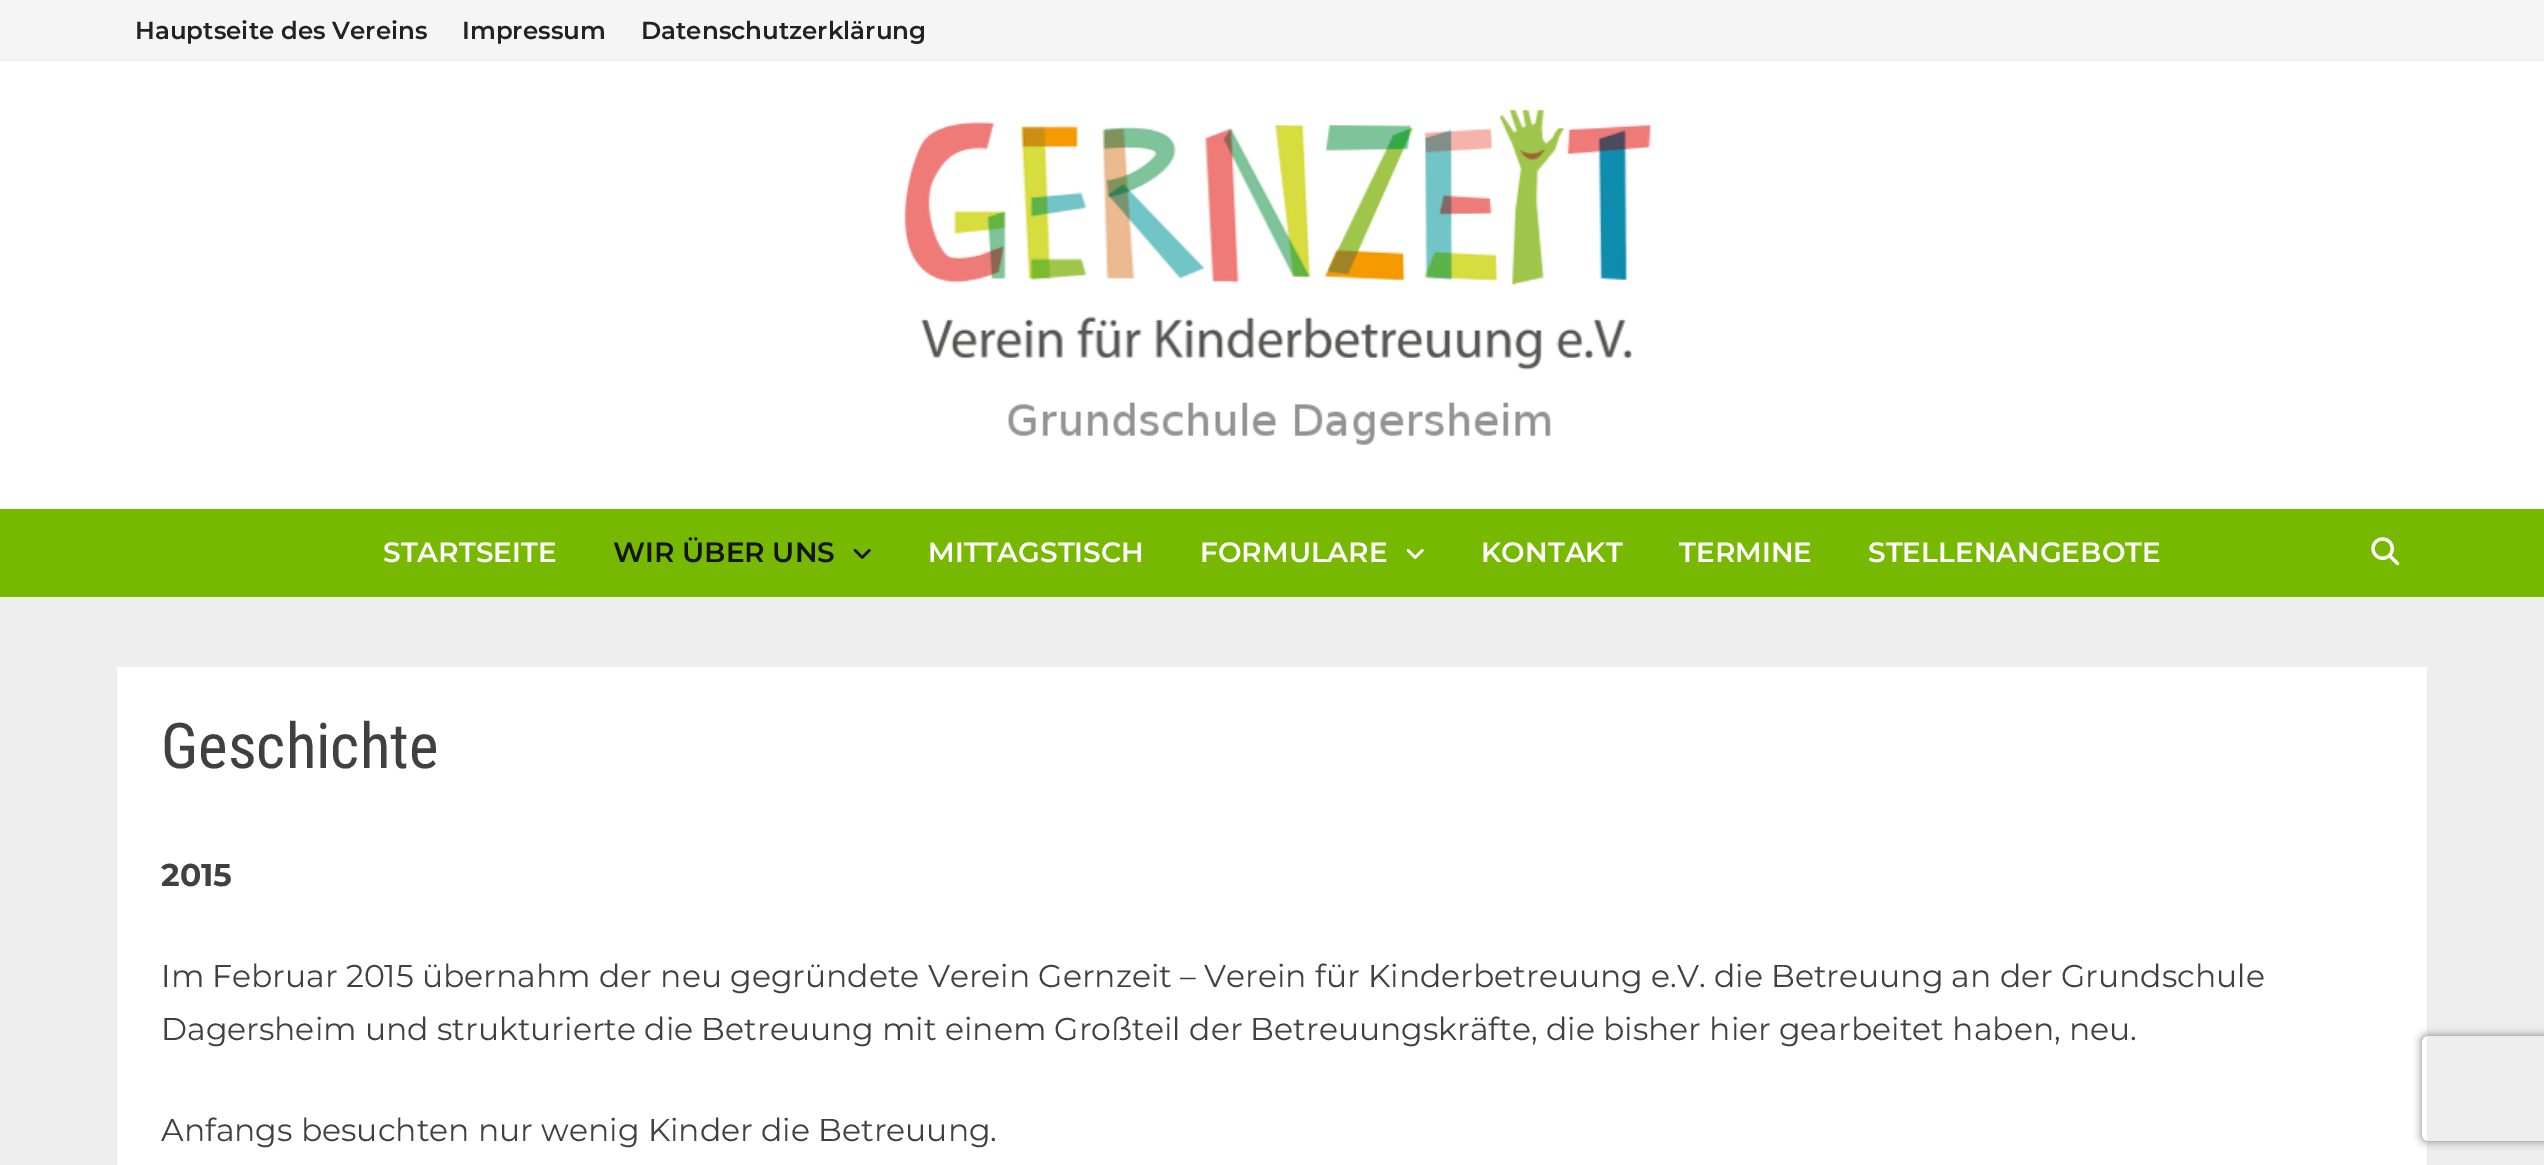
%!PS-Adobe-3.0
%%BoundingBox: 0 0 2544 1165
%%LanguageLevel: 3
%%Pages: 1
%%EndComments
%%BeginProlog
/setalpha { dup .setfillconstantalpha .setstrokeconstantalpha } def
/rrect { 5 dict begin { /r /h /w /y /x } { exch def } forall
  x r add y moveto x w add y 2 copy h add r arct x w add y h add x 1 index r arct
  x y h add x y r arct x y 2 copy exch w add exch r arct closepath end } def
/softshadow { 12 dict begin { /a /b /q /h /w /y /x } { exch def } forall gsave /was 0 def
  9 -2 -9 { dup b mul 4 div /e exch def 1 sub .425 mul 2.718 exch exp 1 add a .99 .min exch div /now exch def
    1 1 now sub 1 was sub div sub setalpha /was now def
    w h .min e 2 mul add 0 gt { x e sub y e sub w e 2 mul add h e 2 mul add
      q e add b .6 mul add w h .min 2 div e add .min 0 .max rrect fill } if } for grestore end } def
/drawimage { 5 dict begin { /h /w /y /x /name } { exch def } forall
  gsave x y translate w h scale
  w h 8 [w 0 0 h 0 0] name (r) file false 3 colorimage grestore end } def
%%EndProlog
%%BeginSetup
<< /PageSize [2544 1165] /PageUsesTransparency true >> setpagedevice
%%EndSetup
%%Page: 1 1
0 .pushpdf14devicefilter
0 1165 translate 1 -1 scale
4 setmiterlimit
0.933 setgray
0 0 2544 1165 rectfill
0.961 setgray
0 0 2544 60 rectfill
1 setgray
0 61 2544 448 rectfill
(images/1.raw) 904 110 748 335 drawimage
0.463 0.725 0 setrgbcolor
0 509 2544 88 rectfill
(images/2.raw) 853 549 18 10 drawimage
(images/3.raw) 1406 549 18 10 drawimage
(images/4.raw) 2371 537 29 29 drawimage
1 setgray
117 667 2310 498 rectfill
gsave
newpath 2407 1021 moveto 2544 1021 lineto 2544 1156 lineto 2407 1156 lineto closepath 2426 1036 moveto 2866 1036 lineto 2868 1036 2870 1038 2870 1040 curveto 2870 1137 lineto 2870 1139 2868 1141 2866 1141 curveto 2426 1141 lineto 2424 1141 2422 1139 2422 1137 curveto 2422 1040 lineto 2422 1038 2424 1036 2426 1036 curveto closepath eoclip newpath
0.502 setgray
2422 1036 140 105 4 4.5 1 softshadow
grestore
/Montserrat-SemiBold [24.5 0 0 -24.5 0 0] selectfont
0.133 setgray
135 39 moveto (Hauptseite des Vereins) show
462 39 moveto (Impressum) show
641 39 moveto (Datenschutzerklärung) show
/Montserrat-SemiBold [28 0 0 -28 0 0] selectfont
1 setgray
383 562 moveto (STARTSEITE) show
0.078 setgray
613 562 moveto (WIR ÜBER UNS) show
1 setgray
928 562 moveto (MITTAGSTISCH) show
1200 562 moveto (FORMULARE) show
1481 562 moveto (KONTAKT) show
1679 562 moveto (TERMINE) show
1868 562 moveto (STELLENANGEBOTE) show
/RobotoCondensed-Regular [63 0 0 -63 0 0] selectfont
0.251 setgray
161 768 moveto (Geschichte) show
/Montserrat-Bold [31.5 0 0 -31.5 0 0] selectfont
161 886 moveto (2015) show
/Montserrat-Regular [31.5 0 0 -31.5 0 0] selectfont
161 987 moveto (Im Februar 2015 übernahm der neu gegründete Verein Gernzeit – Verein für Kinderbetreuung e.V. die Betreuung an der Grundschule) show
161 1040 moveto (Dagersheim und strukturierte die Betreuung mit einem Großteil der Betreuungskräfte, die bisher hier gearbeitet haben, neu.) show
161 1141 moveto (Anfangs besuchten nur wenig Kinder die Betreuung.) show
.poppdf14devicefilter showpage
%%EOF
